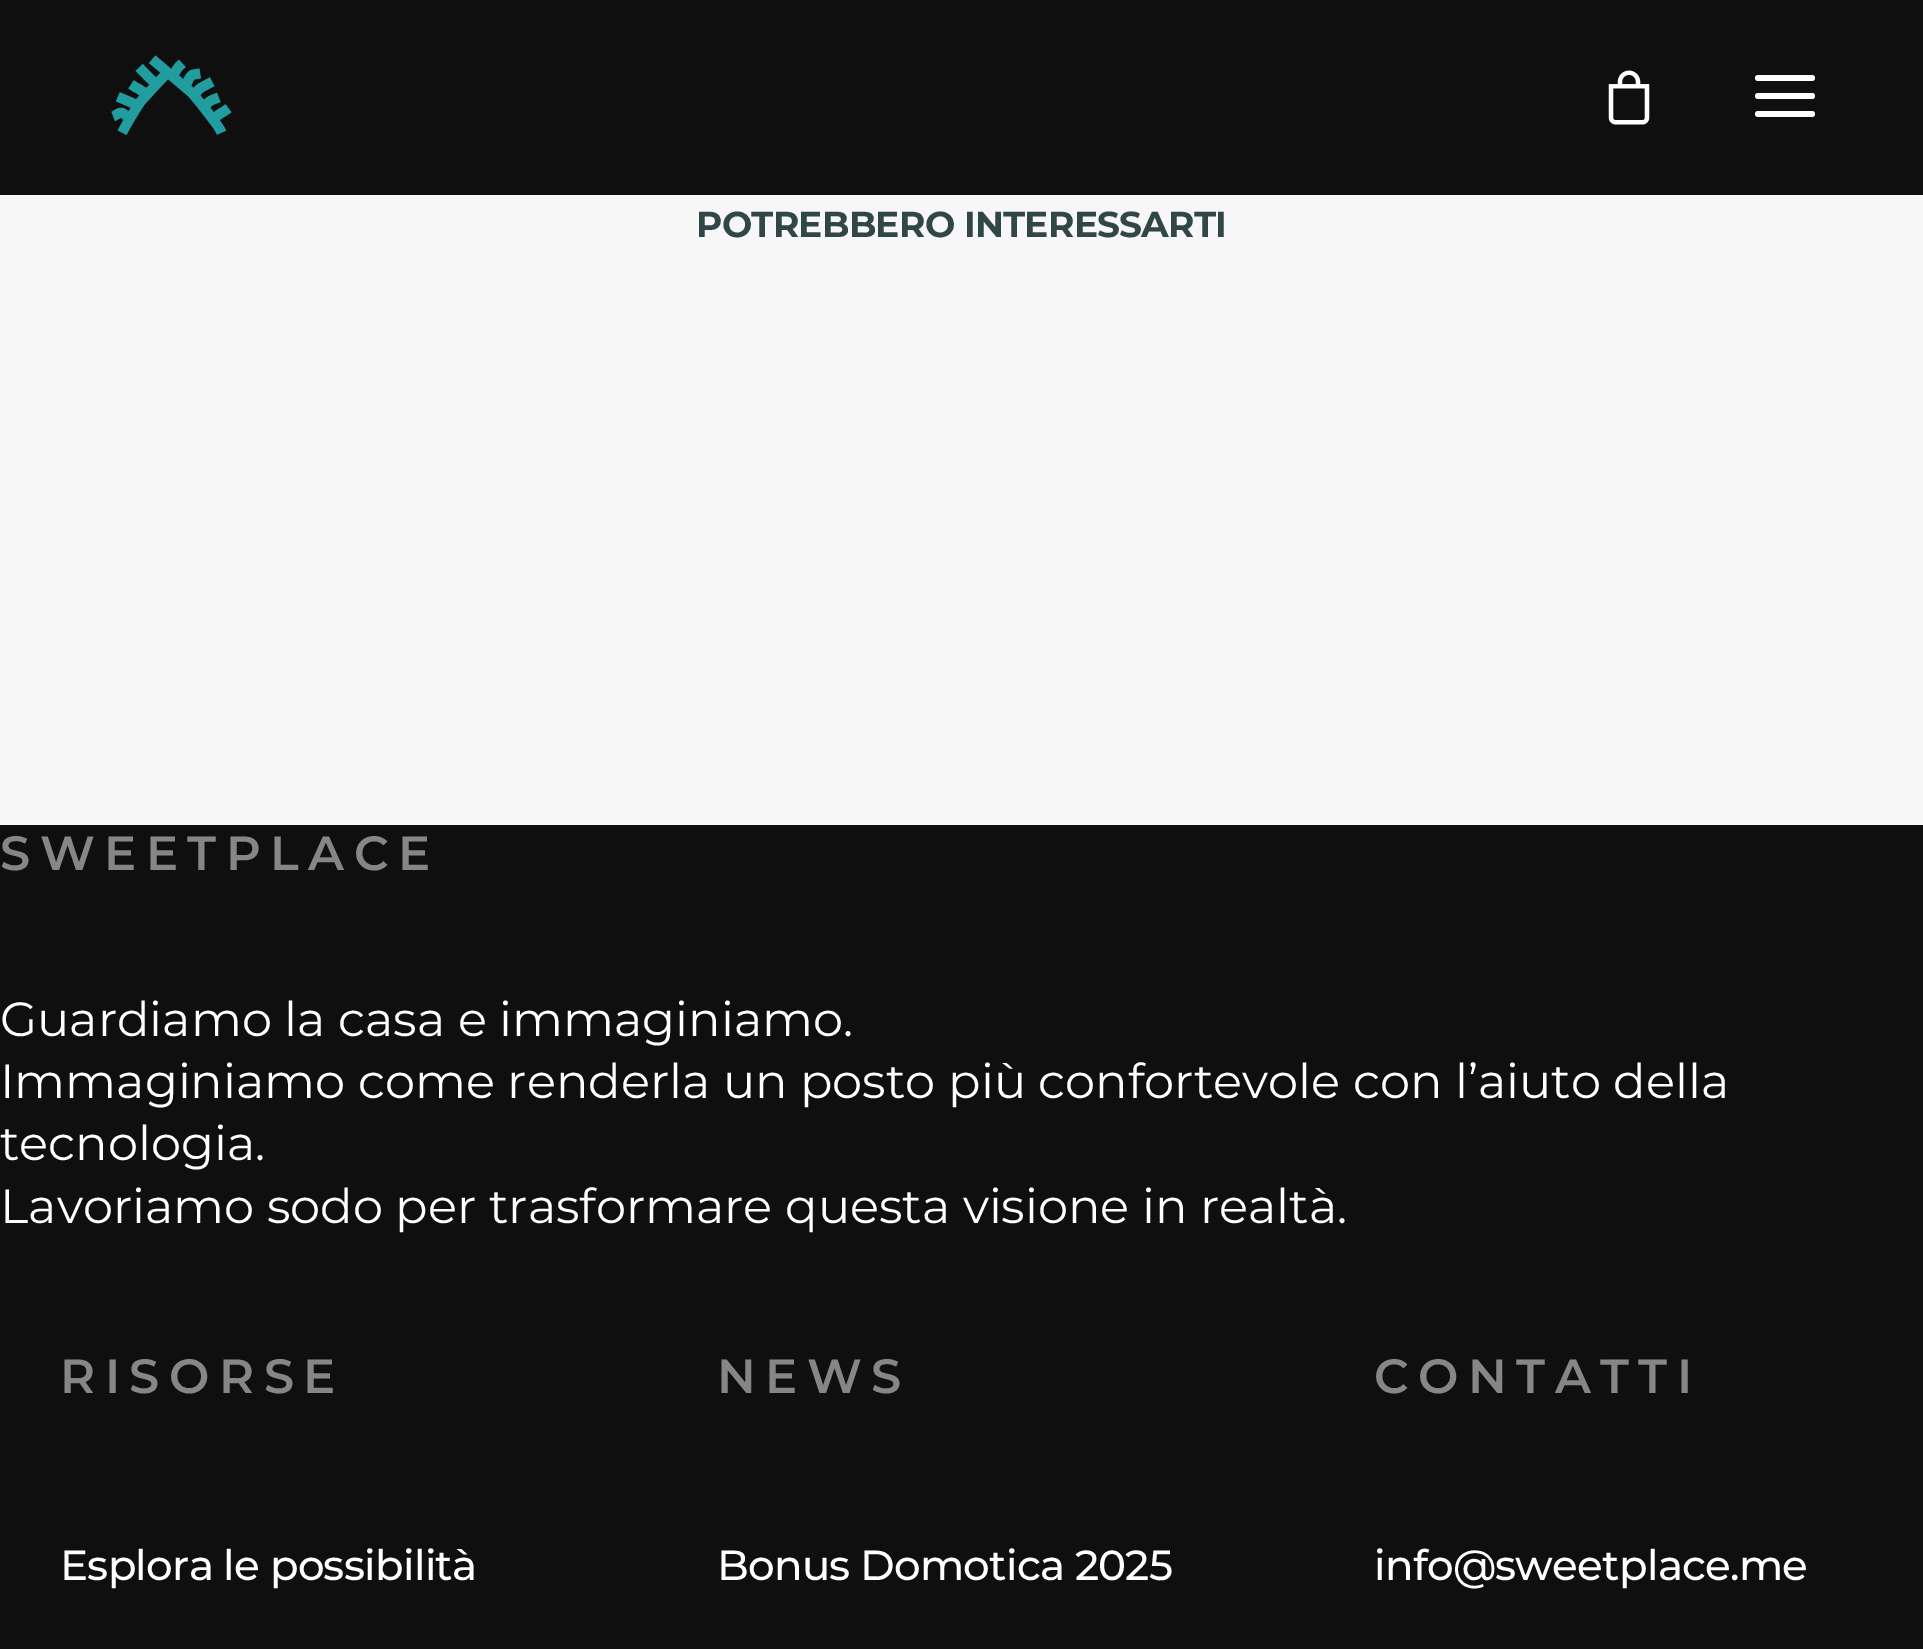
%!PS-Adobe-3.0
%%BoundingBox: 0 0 1923 1649
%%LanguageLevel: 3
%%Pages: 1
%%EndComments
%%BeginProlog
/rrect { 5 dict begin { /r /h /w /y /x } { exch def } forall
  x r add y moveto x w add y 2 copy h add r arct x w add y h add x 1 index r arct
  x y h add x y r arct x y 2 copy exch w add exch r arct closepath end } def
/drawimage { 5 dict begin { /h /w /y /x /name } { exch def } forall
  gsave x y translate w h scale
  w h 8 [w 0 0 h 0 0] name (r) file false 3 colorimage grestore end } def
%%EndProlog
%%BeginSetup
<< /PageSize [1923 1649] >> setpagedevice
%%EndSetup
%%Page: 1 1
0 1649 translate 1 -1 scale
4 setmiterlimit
0.969 setgray
0 0 1923 1649 rectfill
0.059 setgray
0 0 1923 195 rectfill
(images/1.raw) 111 55 121 80 drawimage
(images/2.raw) 1608 70 42 55 drawimage
1 setgray
1755 93 60 6 3 rrect fill
1755 75 60 6 3 rrect fill
1755 111 60 6 3 rrect fill
0.059 setgray
0 825 1923 824 rectfill
/Montserrat-Bold [36 0 0 -36 0 0] selectfont
0.192 0.278 0.275 setrgbcolor
696 237 moveto -0.75 0 (POTREBBERO INTERESSARTI) ashow
/Montserrat-Thin [48 0 0 -48 0 0] selectfont
0.525 setgray
0 870 moveto 9.5 0 (SWEETPLACE) ashow
/Montserrat-Regular [48 0 0 -48 0 0] selectfont
1 setgray
0 1036 moveto (Guardiamo la casa e immaginiamo.) show
0 1098 moveto (Immaginiamo come renderla un posto più confortevole con l’aiuto della) show
0 1160 moveto (tecnologia.) show
0 1223 moveto (Lavoriamo sodo per trasformare questa visione in realtà.) show
/Montserrat-Thin [48 0 0 -48 0 0] selectfont
0.525 setgray
60 1393 moveto 9.5 0 (RISORSE) ashow
/Montserrat-Medium [42 0 0 -42 0 0] selectfont
1 setgray
60 1580 moveto -0.8 0 (Esplora le possibilità) ashow
/Montserrat-Thin [48 0 0 -48 0 0] selectfont
0.525 setgray
717 1393 moveto 9.5 0 (NEWS) ashow
/Montserrat-Medium [42 0 0 -42 0 0] selectfont
1 setgray
717 1580 moveto -0.8 0 (Bonus Domotica 2025) ashow
/Montserrat-Thin [48 0 0 -48 0 0] selectfont
0.525 setgray
1374 1393 moveto 9.5 0 (CONTATTI) ashow
/Montserrat-Medium [42 0 0 -42 0 0] selectfont
1 setgray
1374 1580 moveto -0.8 0 (info@sweetplace.me) ashow
showpage
%%EOF
